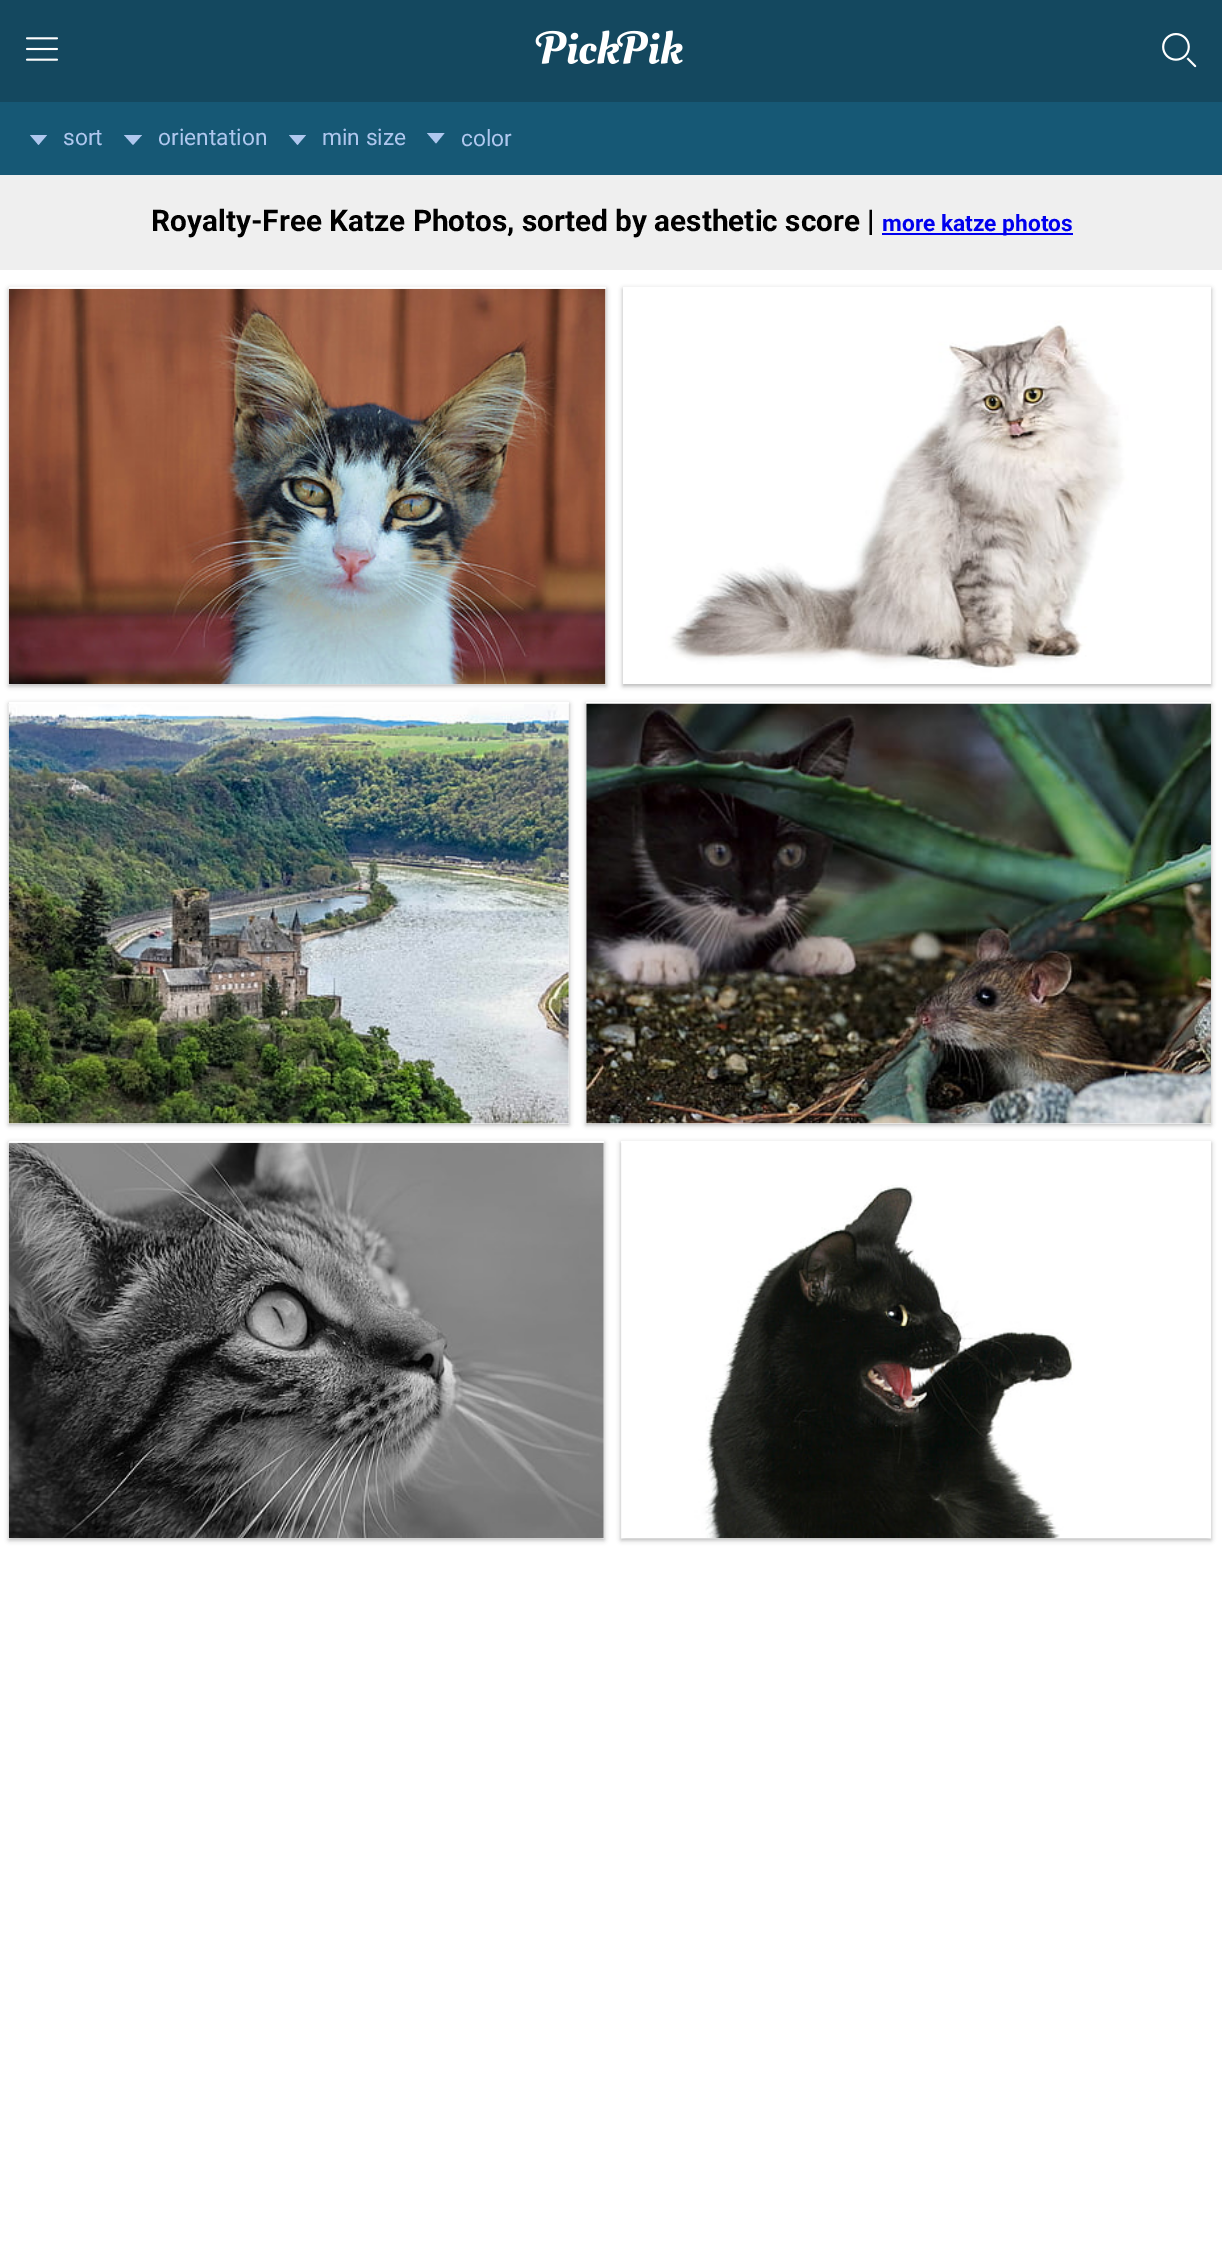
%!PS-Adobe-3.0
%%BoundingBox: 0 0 1222 2259
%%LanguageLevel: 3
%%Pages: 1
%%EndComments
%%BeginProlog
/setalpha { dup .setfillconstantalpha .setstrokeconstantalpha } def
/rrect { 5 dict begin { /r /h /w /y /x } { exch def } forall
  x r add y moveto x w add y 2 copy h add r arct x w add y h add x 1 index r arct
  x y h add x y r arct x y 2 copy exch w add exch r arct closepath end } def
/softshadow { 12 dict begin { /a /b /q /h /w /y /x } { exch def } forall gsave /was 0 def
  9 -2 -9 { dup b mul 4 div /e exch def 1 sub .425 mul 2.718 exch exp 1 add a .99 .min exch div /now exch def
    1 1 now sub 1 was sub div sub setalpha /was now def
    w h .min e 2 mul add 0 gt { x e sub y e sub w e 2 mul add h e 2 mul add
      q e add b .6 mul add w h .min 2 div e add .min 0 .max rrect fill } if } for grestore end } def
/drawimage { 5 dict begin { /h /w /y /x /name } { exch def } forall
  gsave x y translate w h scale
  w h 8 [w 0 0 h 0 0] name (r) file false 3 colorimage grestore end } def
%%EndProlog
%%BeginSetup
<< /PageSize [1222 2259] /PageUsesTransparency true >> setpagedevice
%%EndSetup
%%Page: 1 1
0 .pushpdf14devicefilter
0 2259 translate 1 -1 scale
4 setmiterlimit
1 setgray
0 0 1222 2259 rectfill
0.078 0.282 0.373 setrgbcolor
0 0 1222 102 rectfill
(images/1.raw) 26 37 32 24 drawimage
(images/2.raw) 535 30 148 34 drawimage
(images/3.raw) 1162 33 35 35 drawimage
0.086 0.345 0.459 setrgbcolor
0 102 1222 73 rectfill
0.686 0.78 0.933 setrgbcolor
newpath 30 135 moveto 47 135 lineto 38.5 145 lineto closepath fill
newpath 124 135 moveto 142 135 lineto 133 145 lineto closepath fill
newpath 289 135 moveto 306 135 lineto 297.5 145 lineto closepath fill
newpath 427 133 moveto 444.5 133 lineto 436 143.5 lineto closepath fill
0.937 setgray
0 175 1222 95 rectfill
0 0 0.933 setrgbcolor
882 233 191 2 rectfill
0 setgray
9 289 597 397 0 2.5 0.3 softshadow
0.945 setgray
605 289 1 395 rectfill
1 setgray
9 287 597 2 rectfill
(images/4.raw) 8 288 598 397 drawimage
0 setgray
623 289 588 397 0 2.5 0.3 softshadow
1 setgray
623 287 588 2 rectfill
(images/5.raw) 623 289 588 395 drawimage
0 setgray
9 704 560 421 0 2.5 0.3 softshadow
0.945 setgray
9 704 560 420 rectfill
1 setgray
9 702 560 2 rectfill
(images/6.raw) 8 704 561 420 drawimage
0 setgray
586 704 625 421 0 2.5 0.3 softshadow
0.945 setgray
586 704 625 420 rectfill
1 setgray
586 702 625 2 rectfill
(images/7.raw) 586 703 625 421 drawimage
0 setgray
9 1143 595 397 0 2.5 0.3 softshadow
0.945 setgray
603 1143 1 395 rectfill
1 setgray
9 1141 595 2 rectfill
(images/8.raw) 8 1142 596 397 drawimage
0 setgray
621 1143 590 397 0 2.5 0.3 softshadow
0.945 setgray
621 1143 1 395 rectfill
1 setgray
621 1141 590 2 rectfill
(images/9.raw) 621 1143 590 396 drawimage
/Roboto-Regular [22.75 0 0 -22.75 0 0] selectfont
0.686 0.78 0.933 setrgbcolor
63 145 moveto (sort) show
158 145 moveto (orientation) show
322 145 moveto (min size) show
461 146 moveto (color) show
/Roboto-Bold [29.75 0 0 -29.75 0 0] selectfont
0 setgray
151 231 moveto (Royalty-Free Katze Photos, sorted by aesthetic score |) show
/Roboto-Bold [22.75 0 0 -22.75 0 0] selectfont
0 0 0.933 setrgbcolor
882 231 moveto (more katze photos) show
.poppdf14devicefilter showpage
%%EOF
